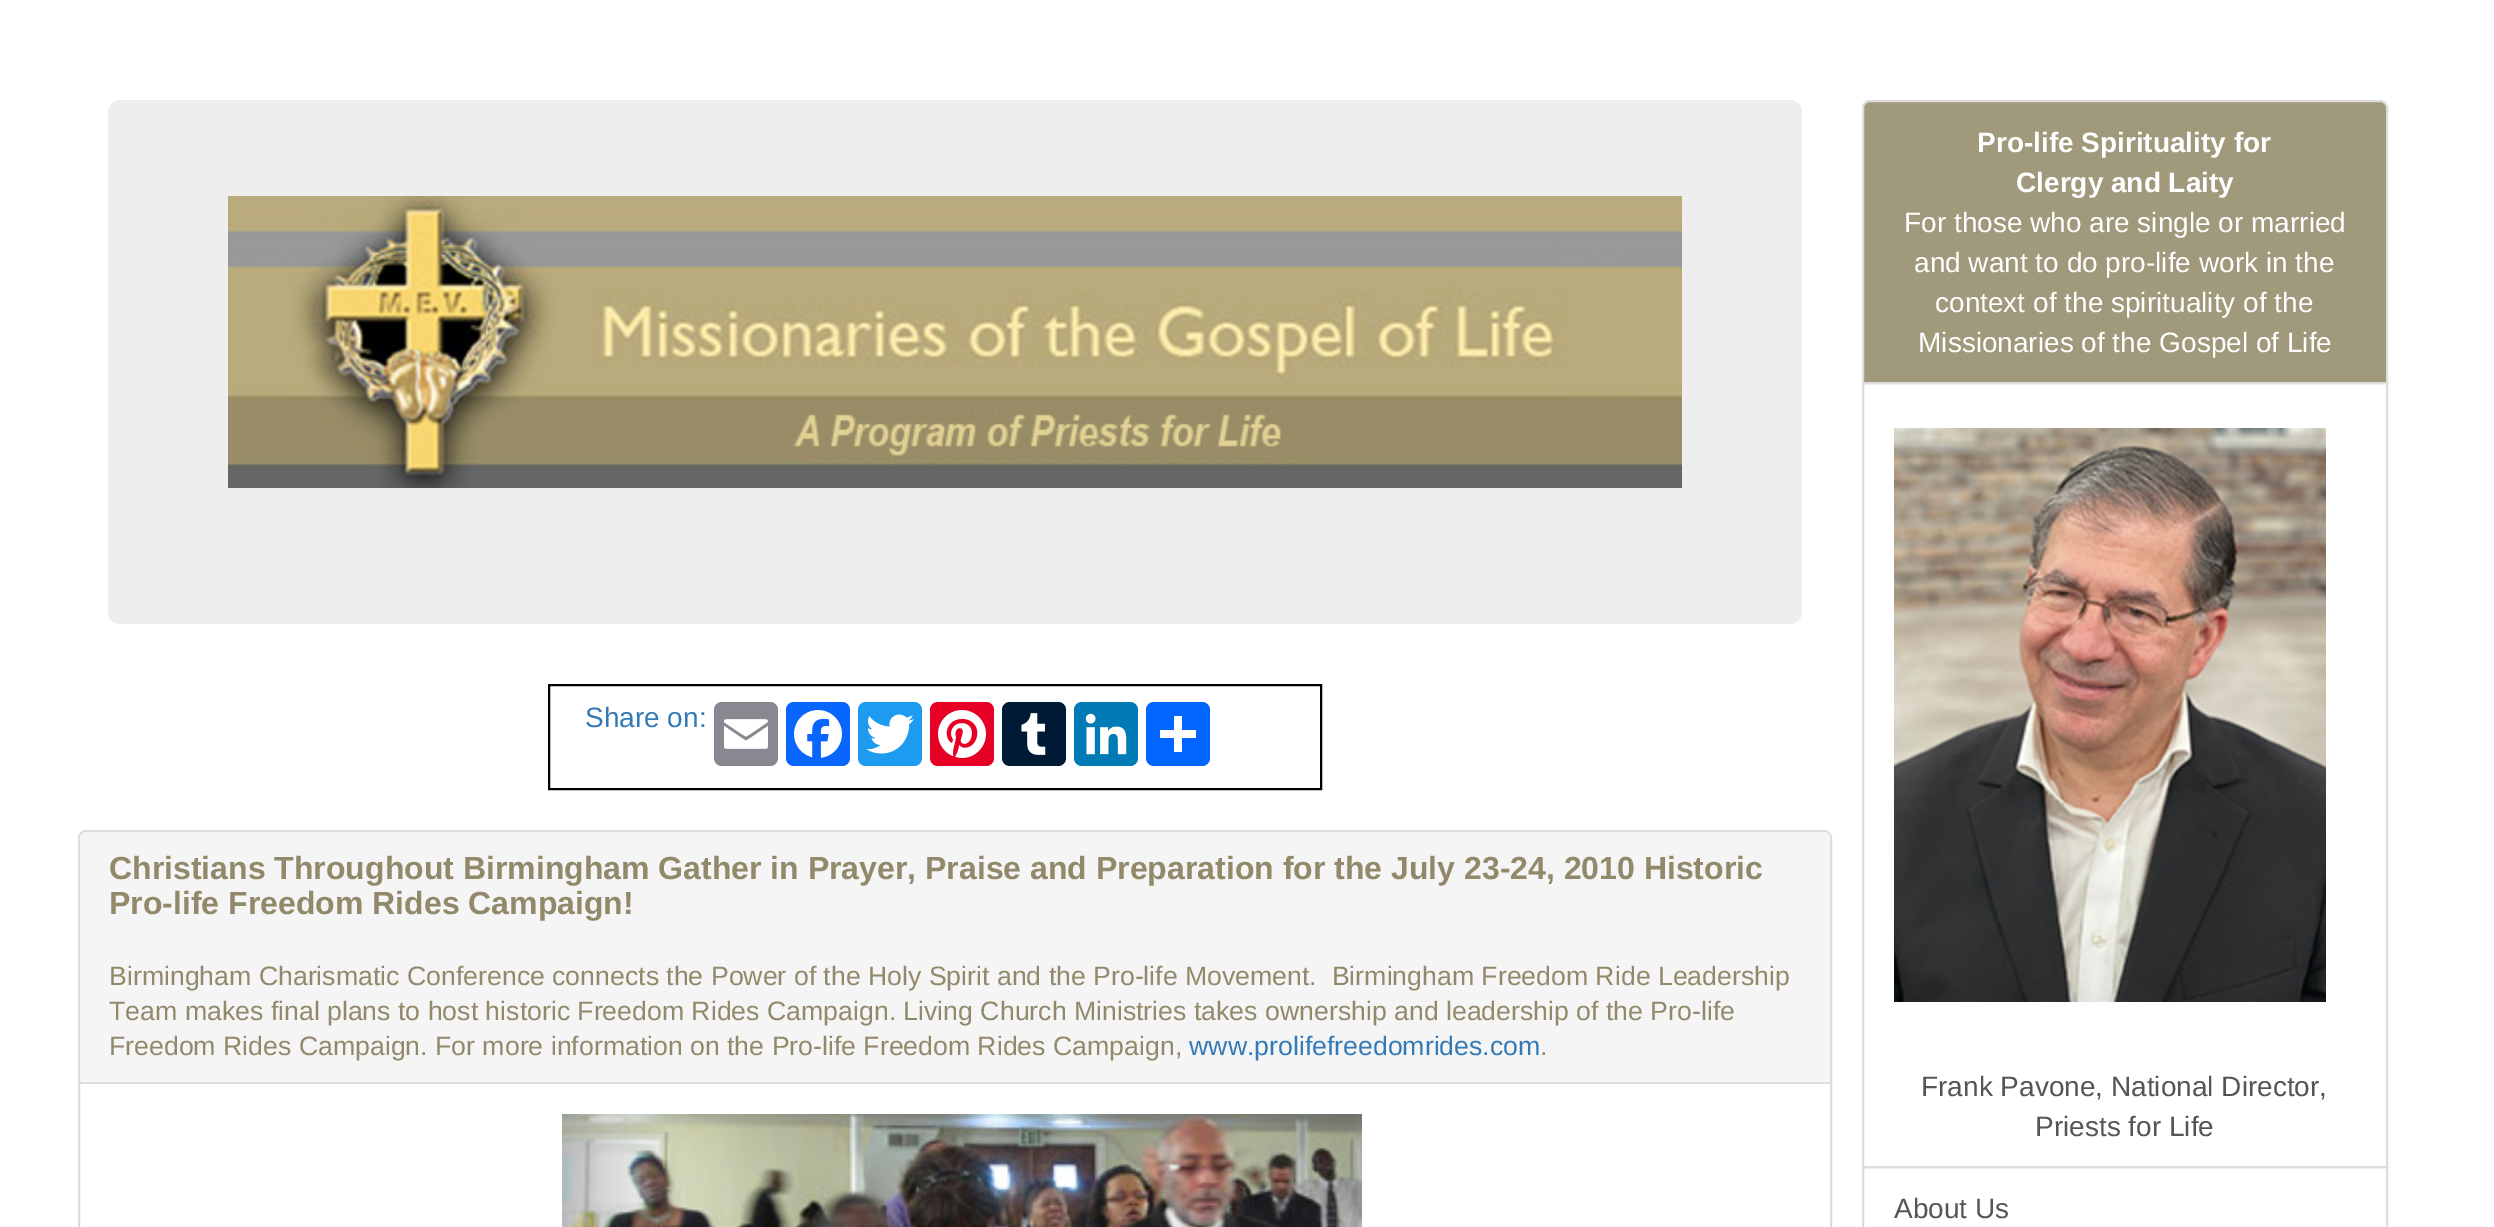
%!PS-Adobe-3.0
%%BoundingBox: 0 0 2494 1227
%%LanguageLevel: 3
%%Pages: 1
%%EndComments
%%BeginProlog
/rrect { 5 dict begin { /r /h /w /y /x } { exch def } forall
  x r add y moveto x w add y 2 copy h add r arct x w add y h add x 1 index r arct
  x y h add x y r arct x y 2 copy exch w add exch r arct closepath end } def
/drawimage { 5 dict begin { /h /w /y /x /name } { exch def } forall
  gsave x y translate w h scale
  w h 8 [w 0 0 h 0 0] name (r) file false 3 colorimage grestore end } def
%%EndProlog
%%BeginSetup
<< /PageSize [2494 1227] >> setpagedevice
%%EndSetup
%%Page: 1 1
0 1227 translate 1 -1 scale
4 setmiterlimit
1 setgray
0 0 2494 1227 rectfill
0.933 setgray
108 100 1694 524 12 rrect fill
(images/1.raw) 228 196 1454 292 drawimage
0 setgray
2 setlinewidth
549 685 772 104 rectstroke
0.533 0.537 0.565 setrgbcolor
714 702 64 64 8 rrect fill
(images/2.raw) 724 719 44 30 drawimage
0.031 0.4 1 setrgbcolor
786 702 64 64 8 rrect fill
(images/3.raw) 794 710 48 48 drawimage
0.114 0.608 0.941 setrgbcolor
858 702 64 64 8 rrect fill
(images/4.raw) 866 714 48 40 drawimage
0.902 0 0.137 setrgbcolor
930 702 64 64 8 rrect fill
(images/5.raw) 938 710 48 48 drawimage
0 0.098 0.208 setrgbcolor
1002 702 64 64 8 rrect fill
(images/6.raw) 1021 713 25 42 drawimage
0 0.482 0.71 setrgbcolor
1074 702 64 64 8 rrect fill
(images/7.raw) 1085 713 42 42 drawimage
0.004 0.4 1 setrgbcolor
1146 702 64 64 8 rrect fill
1 setgray
1174 716 8 36 rectfill
1160 730 36 8 rectfill
0.867 setgray
79 831 1752 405 7 rrect stroke
0.961 setgray
newpath 86 832 moveto 1824 832 lineto 1827.5 832 1830 834.5 1830 838 curveto 1830 1084 lineto 80 1084 lineto 80 838 lineto 80 834.5 82.5 832 86 832 curveto closepath fill
0.867 setgray
80 1082 1750 2 rectfill
(images/8.raw) 562 1114 800 113 drawimage
0.627 0.6 0.486 setrgbcolor
newpath 1870 101 moveto 2380 101 lineto 2384 101 2387 104 2387 108 curveto 2387 383 lineto 1863 383 lineto 1863 108 lineto 1863 104 1866 101 1870 101 curveto closepath gsave fill grestore
0.867 setgray
stroke
1863 383 524 784 rectstroke
(images/9.raw) 1894 428 432 574 drawimage
1863 1167 524 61 rectstroke
/LiberationSans-Regular [28 0 0 -28 0 0] selectfont
0.2 0.478 0.718 setrgbcolor
585 727 moveto (Share on:) show
/LiberationSans-Bold [32 0 0 -32 0 0] selectfont
0.573 0.537 0.416 setrgbcolor
109 879 moveto (Christians Throughout Birmingham Gather in Prayer, Praise and Preparation for the July 23-24, 2010 Historic) show
109 914 moveto (Pro-life Freedom Rides Campaign!) show
/LiberationSans-Regular [26.67 0 0 -26.67 0 0] selectfont
109 985 moveto (Birmingham Charismatic Conference connects the Power of the Holy Spirit and the Pro-life Movement.  Birmingham Freedom Ride Leadership) show
109 1020 moveto (Team makes final plans to host historic Freedom Rides Campaign. Living Church Ministries takes ownership and leadership of the Pro-life) show
109 1055 moveto (Freedom Rides Campaign. For more information on the Pro-life Freedom Rides Campaign,) show
0.2 0.478 0.718 setrgbcolor
1189 1055 moveto (www.prolifefreedomrides.com) show
0.573 0.537 0.416 setrgbcolor
1540 1055 moveto (.) show
/LiberationSans-Bold [28 0 0 -28 0 0] selectfont
1 setgray
1977 152 moveto (Pro-life Spirituality for) show
2016 192 moveto (Clergy and Laity) show
/LiberationSans-Regular [28 0 0 -28 0 0] selectfont
1904 232 moveto (For those who are single or married) show
1914 272 moveto (and want to do pro-life work in the) show
1935 312 moveto (context of the spirituality of the) show
1918 352 moveto (Missionaries of the Gospel of Life) show
0.333 setgray
1921 1096 moveto (Frank Pavone, National Director,) show
2035 1136 moveto (Priests for Life) show
1894 1218 moveto (About Us) show
showpage
%%EOF
